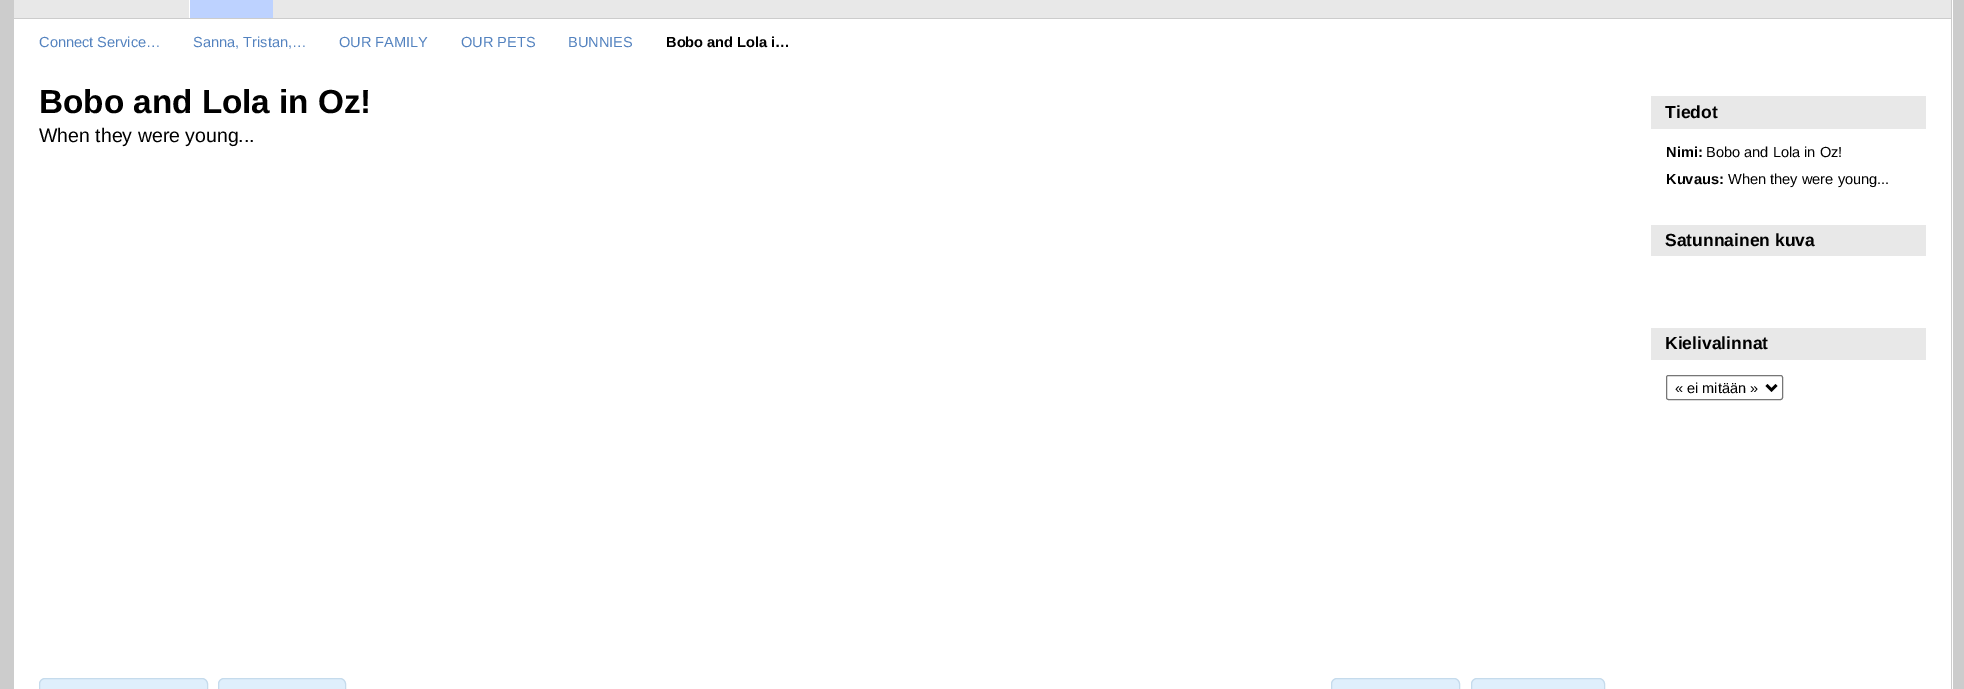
%!PS-Adobe-3.0
%%BoundingBox: 0 0 1964 689
%%LanguageLevel: 3
%%Pages: 1
%%EndComments
%%BeginProlog
/rrect { 5 dict begin { /r /h /w /y /x } { exch def } forall
  x r add y moveto x w add y 2 copy h add r arct x w add y h add x 1 index r arct
  x y h add x y r arct x y 2 copy exch w add exch r arct closepath end } def
%%EndProlog
%%BeginSetup
<< /PageSize [1964 689] >> setpagedevice
%%EndSetup
%%Page: 1 1
0 689 translate 1 -1 scale
4 setmiterlimit
0.8 setgray
0 0 1964 689 rectfill
1 setgray
14 0 1939 689 rectfill
0.8 setgray
1951 0 1 689 rectfill
0.91 setgray
14 0 1937 18 rectfill
0.8 setgray
14 18 1937 1 rectfill
0.741 0.824 1 setrgbcolor
190 0 83 18 rectfill
1 setgray
newpath 189 18 moveto 189 -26 lineto 190 -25 lineto 190 18 lineto closepath fill
0.875 0.937 0.988 setrgbcolor
39.5 678.5 168 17 5.5 rrect gsave fill grestore
0.773 0.859 0.925 setrgbcolor
stroke
0.875 0.937 0.988 setrgbcolor
218.5 678.5 127 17 5.5 rrect gsave fill grestore
0.773 0.859 0.925 setrgbcolor
stroke
0.875 0.937 0.988 setrgbcolor
1331.5 678.5 128 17 5.5 rrect gsave fill grestore
0.773 0.859 0.925 setrgbcolor
stroke
0.875 0.937 0.988 setrgbcolor
1471.5 678.5 133 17 5.5 rrect gsave fill grestore
0.773 0.859 0.925 setrgbcolor
stroke
0.91 setgray
1651 96 275 33 rectfill
1651 225 275 31 rectfill
1651 328 275 32 rectfill
0.463 setgray
1666.5 375.5 116 24 2 rrect stroke
0 setgray
2.5 setlinewidth
newpath 1766.5 385 moveto 1771.5 390 lineto 1776.5 385 lineto stroke
/LiberationSans-Regular [14.6 0 0 -14.6 0 0] selectfont
0.325 0.51 0.749 setrgbcolor
39 47 moveto (Connect Service…) show
193 47 moveto (Sanna, Tristan,…) show
339 47 moveto (OUR FAMILY) show
461 47 moveto (OUR PETS) show
568 47 moveto (BUNNIES) show
/LiberationSans-Bold [14.6 0 0 -14.6 0 0] selectfont
0 setgray
666 47 moveto (Bobo and Lola i…) show
/LiberationSans-Bold [33.25 0 0 -33.25 0 0] selectfont
39 113 moveto (Bobo and Lola in Oz!) show
/LiberationSans-Regular [19.5 0 0 -19.5 0 0] selectfont
39 142 moveto (When they were young...) show
/LiberationSans-Bold [17.5 0 0 -17.5 0 0] selectfont
1665 118 moveto (Tiedot) show
/LiberationSans-Bold [14.6 0 0 -14.6 0 0] selectfont
1666 157 moveto (Nimi:) show
/LiberationSans-Regular [14.6 0 0 -14.6 0 0] selectfont
1706 157 moveto (Bobo and Lola in Oz!) show
/LiberationSans-Bold [14.6 0 0 -14.6 0 0] selectfont
1666 184 moveto (Kuvaus:) show
/LiberationSans-Regular [14.6 0 0 -14.6 0 0] selectfont
1728 184 moveto (When they were young...) show
/LiberationSans-Bold [17.5 0 0 -17.5 0 0] selectfont
1665 246 moveto (Satunnainen kuva) show
1665 349 moveto (Kielivalinnat) show
/LiberationSans-Regular [14.5 0 0 -14.5 0 0] selectfont
1675 393 moveto (« ei mitään ») show
showpage
%%EOF
